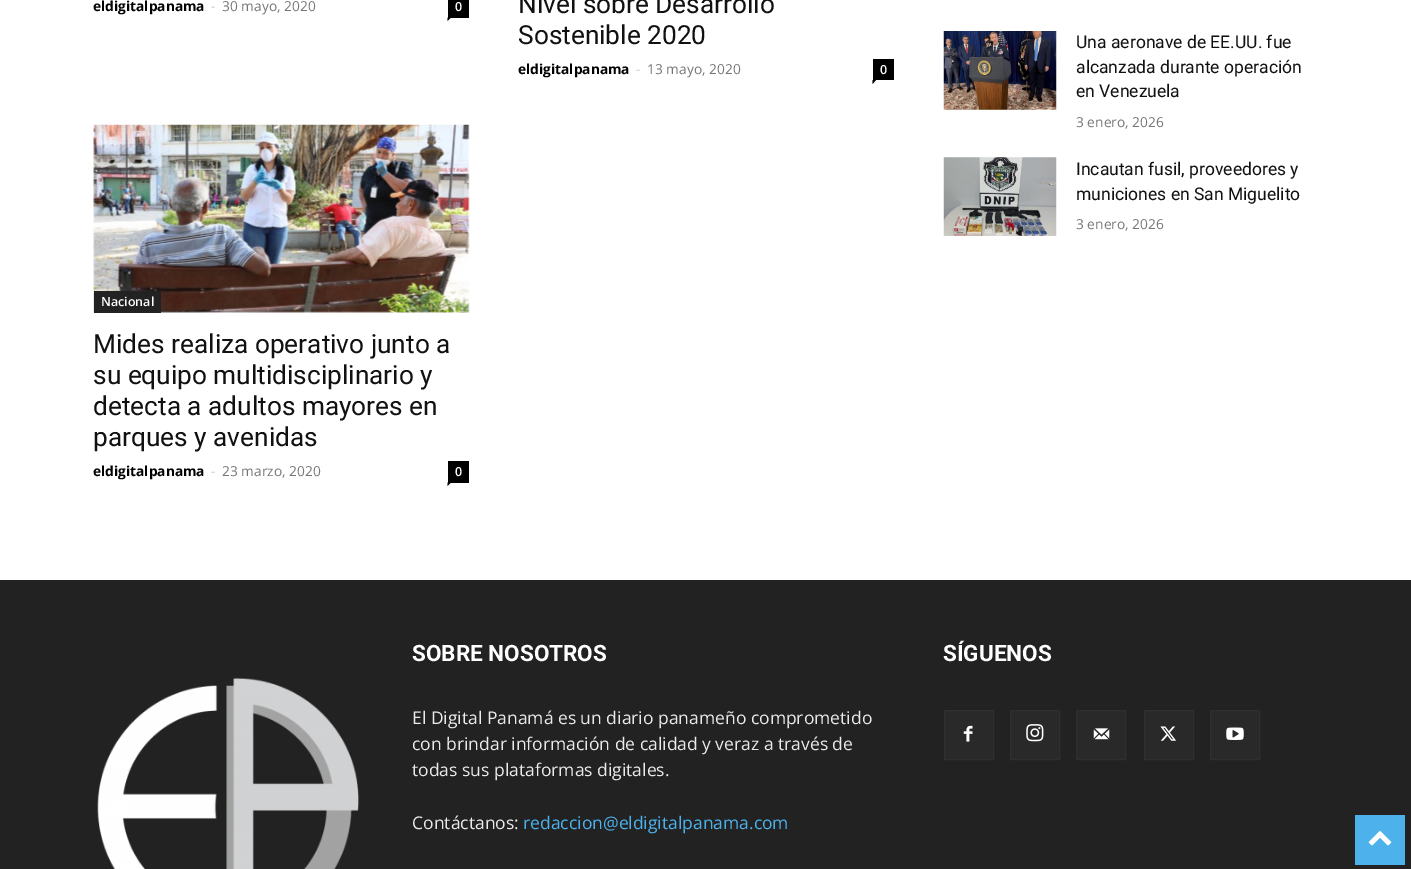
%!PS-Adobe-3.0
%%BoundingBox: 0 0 1411 869
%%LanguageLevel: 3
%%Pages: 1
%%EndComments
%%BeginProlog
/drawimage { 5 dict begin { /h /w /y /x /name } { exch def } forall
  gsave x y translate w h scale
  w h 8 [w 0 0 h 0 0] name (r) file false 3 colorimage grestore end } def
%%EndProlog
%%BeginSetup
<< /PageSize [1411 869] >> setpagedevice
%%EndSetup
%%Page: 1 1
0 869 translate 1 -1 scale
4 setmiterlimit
1 setgray
0 0 1411 869 rectfill
0 setgray
448 0 21 18 rectfill
newpath 447.5 17.5 moveto 451 17.5 lineto 447.5 21 lineto closepath fill
873 59 21 21 rectfill
newpath 872.5 80 moveto 876 80 lineto 872.5 84 lineto closepath fill
(images/1.raw) 93 124 377 189 drawimage
0.133 setgray
94 291 67 22 rectfill
0 setgray
448 461 21 22 rectfill
newpath 447.5 482.5 moveto 451 482.5 lineto 447.5 486 lineto closepath fill
(images/2.raw) 943 31 114 79 drawimage
(images/3.raw) 943 157 114 79 drawimage
0.133 setgray
0 580 1411 289 rectfill
(images/4.raw) 97 677 262 192 drawimage
0.161 setgray
945 711 48 48 rectfill
(images/5.raw) 963 725 10 17 drawimage
0.184 setgray
944.5 710.5 49 49 rectstroke
0.161 setgray
1011 711 48 48 rectfill
(images/6.raw) 1026 724 18 18 drawimage
0.184 setgray
1010.5 710.5 49 49 rectstroke
0.161 setgray
1077 711 48 48 rectfill
(images/7.raw) 1093 728 17 12 drawimage
0.184 setgray
1076.5 710.5 49 49 rectstroke
0.161 setgray
1145 711 48 48 rectfill
(images/8.raw) 1160 726 16 15 drawimage
0.184 setgray
1144.5 710.5 49 49 rectstroke
0.161 setgray
1211 711 48 48 rectfill
(images/9.raw) 1226 727 18 13 drawimage
0.184 setgray
1210.5 710.5 49 49 rectstroke
0.302 0.698 0.925 setrgbcolor
1355 815 50 50 rectfill
(images/10.raw) 1368 831 24 15 drawimage
/OpenSans-Bold [13.75 0 0 -13.75 0 0] selectfont
0 setgray
93 11 moveto (eldigitalpanama) show
/OpenSans-Regular [13.75 0 0 -13.75 0 0] selectfont
0.8 setgray
211 11 moveto (-) show
0.463 setgray
222 11 moveto (30 mayo, 2020) show
/OpenSans-SemiBold [12.5 0 0 -12.5 0 0] selectfont
1 setgray
455 11 moveto (0) show
/Roboto-Regular [26.25 0 0 -26.25 0 0] selectfont
0.067 setgray
518 13 moveto (Nivel sobre Desarrollo) show
518 44 moveto (Sostenible 2020) show
/OpenSans-Bold [13.75 0 0 -13.75 0 0] selectfont
0 setgray
518 74 moveto (eldigitalpanama) show
/OpenSans-Regular [13.75 0 0 -13.75 0 0] selectfont
0.8 setgray
636 74 moveto (-) show
0.463 setgray
647 74 moveto (13 mayo, 2020) show
/OpenSans-SemiBold [12.5 0 0 -12.5 0 0] selectfont
1 setgray
880 74 moveto (0) show
101 306 moveto (Nacional) show
/Roboto-Regular [26.25 0 0 -26.25 0 0] selectfont
0.067 setgray
93 353 moveto (Mides realiza operativo junto a) show
93 384 moveto (su equipo multidisciplinario y) show
93 415 moveto (detecta a adultos mayores en) show
93 446 moveto (parques y avenidas) show
/OpenSans-Bold [13.75 0 0 -13.75 0 0] selectfont
0 setgray
93 476 moveto (eldigitalpanama) show
/OpenSans-Regular [13.75 0 0 -13.75 0 0] selectfont
0.8 setgray
211 476 moveto (-) show
0.463 setgray
222 476 moveto (23 marzo, 2020) show
/OpenSans-SemiBold [12.5 0 0 -12.5 0 0] selectfont
1 setgray
455 476 moveto (0) show
/Roboto-Regular [17.5 0 0 -17.5 0 0] selectfont
0.067 setgray
1076 48 moveto (Una aeronave de EE.UU. fue) show
1076 73 moveto (alcanzada durante operación) show
1076 97 moveto (en Venezuela) show
/OpenSans-Regular [13.75 0 0 -13.75 0 0] selectfont
0.463 setgray
1076 127 moveto (3 enero, 2026) show
/Roboto-Regular [17.5 0 0 -17.5 0 0] selectfont
0.067 setgray
1076 175 moveto (Incautan fusil, proveedores y) show
1076 200 moveto (municiones en San Miguelito) show
/OpenSans-Regular [13.75 0 0 -13.75 0 0] selectfont
0.463 setgray
1076 229 moveto (3 enero, 2026) show
/Roboto-Bold [22.5 0 0 -22.5 0 0] selectfont
1 setgray
412 661 moveto (SOBRE NOSOTROS) show
/OpenSans-Regular [17.5 0 0 -17.5 0 0] selectfont
0.918 setgray
412 724 moveto (El Digital Panamá es un diario panameño comprometido) show
412 750 moveto (con brindar información de calidad y veraz a través de) show
412 776 moveto (todas sus plataformas digitales.) show
412 829 moveto (Contáctanos:) show
0.302 0.698 0.925 setrgbcolor
523 829 moveto (redaccion@eldigitalpanama.com) show
/Roboto-Bold [22.5 0 0 -22.5 0 0] selectfont
1 setgray
943 661 moveto (SÍGUENOS) show
showpage
%%EOF
